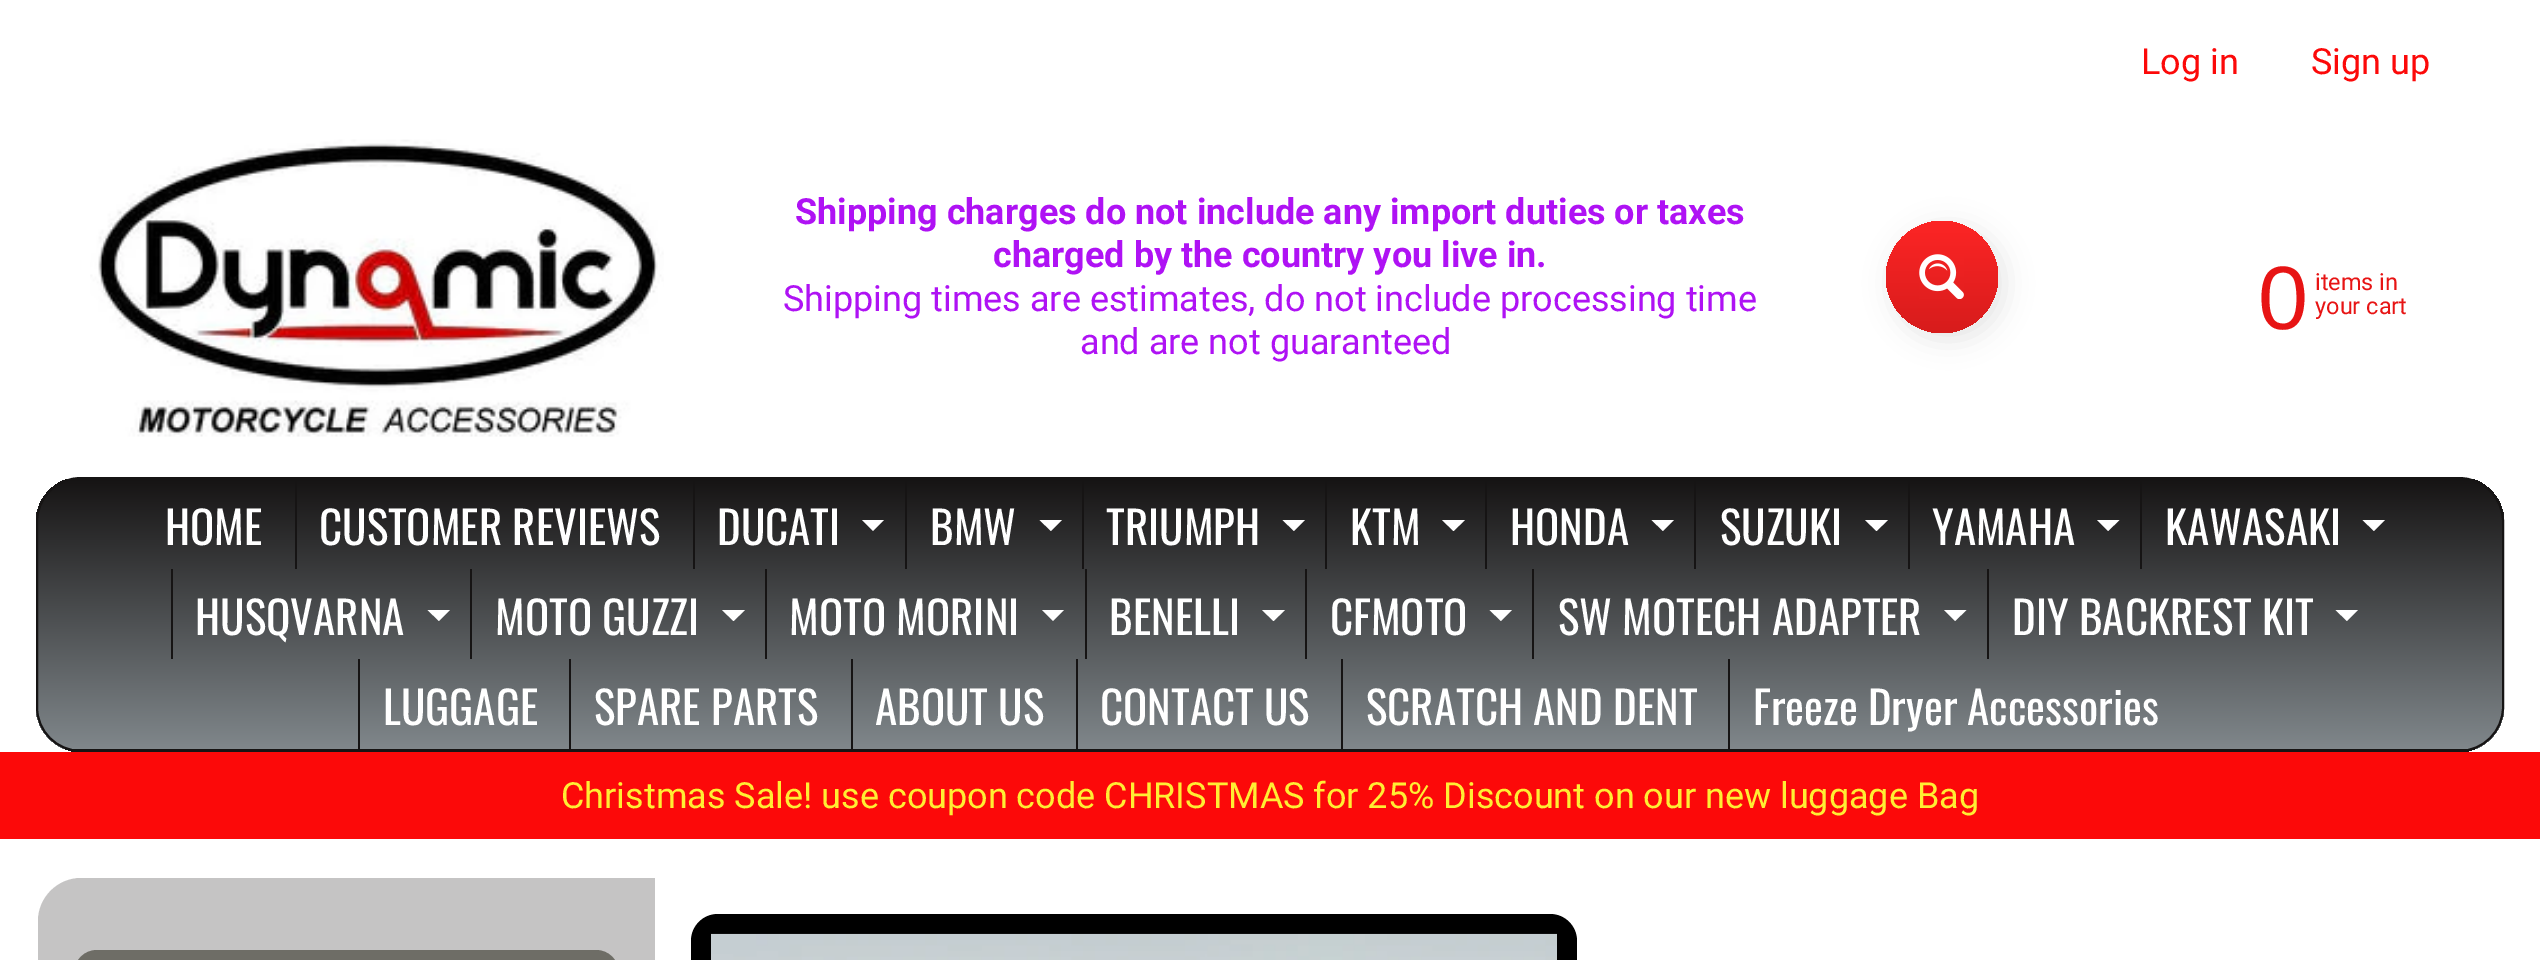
%!PS-Adobe-3.0
%%BoundingBox: 0 0 2540 960
%%LanguageLevel: 3
%%Pages: 1
%%EndComments
%%BeginProlog
/setalpha { dup .setfillconstantalpha .setstrokeconstantalpha } def
/rrect { 5 dict begin { /r /h /w /y /x } { exch def } forall
  x r add y moveto x w add y 2 copy h add r arct x w add y h add x 1 index r arct
  x y h add x y r arct x y 2 copy exch w add exch r arct closepath end } def
/softshadow { 12 dict begin { /a /b /q /h /w /y /x } { exch def } forall gsave /was 0 def
  9 -2 -9 { dup b mul 4 div /e exch def 1 sub .425 mul 2.718 exch exp 1 add a .99 .min exch div /now exch def
    1 1 now sub 1 was sub div sub setalpha /was now def
    w h .min e 2 mul add 0 gt { x e sub y e sub w e 2 mul add h e 2 mul add
      q e add b .6 mul add w h .min 2 div e add .min 0 .max rrect fill } if } for grestore end } def
/drawimage { 5 dict begin { /h /w /y /x /name } { exch def } forall
  gsave x y translate w h scale
  w h 8 [w 0 0 h 0 0] name (r) file false 3 colorimage grestore end } def
%%EndProlog
%%BeginSetup
<< /PageSize [2540 960] /PageUsesTransparency true >> setpagedevice
%%EndSetup
%%Page: 1 1
0 .pushpdf14devicefilter
0 960 translate 1 -1 scale
4 setmiterlimit
1 setgray
0 0 2540 960 rectfill
(images/1.raw) 90 139 574 298 drawimage
0 setgray
1892 227 113 113 56.5 13.5 0.1 softshadow
gsave newpath 1942 277 56 0 360 arc closepath clip newpath
<< /ShadingType 2 /ColorSpace /DeviceRGB /Coords [1942 221 1942 333] /Extend [true true] /Function << /FunctionType 2 /Domain [0 1] /C0 [0.992 0.145 0.145] /C1 [0.843 0.11 0.11] /N 1 >> >> shfill grestore
(images/2.raw) 1919 254 45 45 drawimage
gsave
36 477 2468 275 45 rrect clip newpath
gsave newpath 36 479 moveto 2504 479 lineto 2504 749 lineto 36 749 lineto closepath clip newpath
<< /ShadingType 2 /ColorSpace /DeviceRGB /Coords [1270 479 1270 749] /Extend [true true] /Function << /FunctionType 2 /Domain [0 1] /C0 [0.086 0.078 0.078] /C1 [0.502 0.529 0.545] /N 1 >> >> shfill grestore
gsave newpath 65 749 moveto 2475 749 lineto 2475 752 lineto 65 752 lineto closepath clip newpath
<< /ShadingType 2 /ColorSpace /DeviceRGB /Coords [1270 749 1270 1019] /Extend [true true] /Function << /FunctionType 2 /Domain [0 1] /C0 [0.086 0.078 0.078] /C1 [0.502 0.529 0.545] /N 1 >> >> shfill grestore
grestore
0.086 0.078 0.078 setrgbcolor
2 setlinewidth
37 478 2466 273 44 rrect stroke
295 479 2 90 rectfill
693 479 2 90 rectfill
1 setgray
newpath 862 520 moveto 884 520 lineto 873 531 lineto closepath fill
0.086 0.078 0.078 setrgbcolor
905 479 2 90 rectfill
1 setgray
newpath 1039.5 520 moveto 1062 520 lineto 1051 531 lineto closepath fill
0.086 0.078 0.078 setrgbcolor
1082 479 2 90 rectfill
1 setgray
newpath 1282.5 520 moveto 1305 520 lineto 1294 531 lineto closepath fill
0.086 0.078 0.078 setrgbcolor
1325 479 2 90 rectfill
1 setgray
newpath 1442 520 moveto 1465 520 lineto 1453.5 531 lineto closepath fill
0.086 0.078 0.078 setrgbcolor
1485 479 2 90 rectfill
1 setgray
newpath 1651.5 520 moveto 1674 520 lineto 1663 531 lineto closepath fill
0.086 0.078 0.078 setrgbcolor
1694 479 2 90 rectfill
1 setgray
newpath 1865 520 moveto 1888 520 lineto 1876.5 531 lineto closepath fill
0.086 0.078 0.078 setrgbcolor
1908 479 2 90 rectfill
1 setgray
newpath 2097 520 moveto 2119.5 520 lineto 2108 531 lineto closepath fill
0.086 0.078 0.078 setrgbcolor
2140 479 2 90 rectfill
1 setgray
newpath 2362.5 520 moveto 2385 520 lineto 2374 531 lineto closepath fill
0.086 0.078 0.078 setrgbcolor
171 569 2 90 rectfill
1 setgray
newpath 427.5 610 moveto 450 610 lineto 439 621 lineto closepath fill
0.086 0.078 0.078 setrgbcolor
470 569 2 90 rectfill
1 setgray
newpath 722 610 moveto 745 610 lineto 733.5 621 lineto closepath fill
0.086 0.078 0.078 setrgbcolor
765 569 2 90 rectfill
1 setgray
newpath 1042 610 moveto 1064 610 lineto 1053 621 lineto closepath fill
0.086 0.078 0.078 setrgbcolor
1085 569 2 90 rectfill
1 setgray
newpath 1262 610 moveto 1285 610 lineto 1273.5 621 lineto closepath fill
0.086 0.078 0.078 setrgbcolor
1305 569 2 90 rectfill
1 setgray
newpath 1489.5 610 moveto 1512 610 lineto 1501 621 lineto closepath fill
0.086 0.078 0.078 setrgbcolor
1532 569 2 90 rectfill
1 setgray
newpath 1944 610 moveto 1966.5 610 lineto 1955 621 lineto closepath fill
0.086 0.078 0.078 setrgbcolor
1987 569 2 90 rectfill
1 setgray
newpath 2335.5 610 moveto 2358 610 lineto 2347 621 lineto closepath fill
0.086 0.078 0.078 setrgbcolor
358 659 2 90 rectfill
569 659 2 90 rectfill
851 659 2 90 rectfill
1076 659 2 90 rectfill
1341 659 2 90 rectfill
1728 659 2 90 rectfill
0.988 0.035 0.035 setrgbcolor
0 752 2540 87 rectfill
0.773 0.769 0.769 setrgbcolor
newpath 81 878 moveto 655 878 lineto 655 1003 lineto 81 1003 lineto 57.5 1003 38 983.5 38 960 curveto 38 921 lineto 38 897.5 57.5 878 81 878 curveto closepath fill
0.431 0.427 0.4 setrgbcolor
74 950 545 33 23 rrect fill
0 setgray
691 914 886 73 27 rrect fill
(images/3.raw) 711 933 846 27 drawimage
/Roboto-Bold [36 0 0 -36 0 0] selectfont
0.686 0.071 0.957 setrgbcolor
795 224 moveto (Shipping charges do not include any import duties or taxes) show
993 267 moveto (charged by the country you live in.) show
/Roboto-Regular [36 0 0 -36 0 0] selectfont
783 311 moveto (Shipping times are estimates, do not include processing time) show
1080 354 moveto (and are not guaranteed) show
0.988 0.035 0.035 setrgbcolor
2141 74 moveto (Log in) show
2311 74 moveto (Sign up) show
/LiberationSans-Regular [90 0 0 -90 0 0] selectfont
0.906 0.078 0.078 setrgbcolor
2258 329 moveto (0) show
/Roboto-Regular [23.5 0 0 -23.5 0 0] selectfont
2315 290 moveto (items in) show
2315 314 moveto (your cart) show
/Oswald-Regular [45 0 0 -45 0 0] selectfont
1 setgray
165 545 moveto (HOME) show
319 545 moveto (CUSTOMER REVIEWS) show
717 545 moveto (DUCATI) show
930 545 moveto (BMW) show
1106 545 moveto (TRIUMPH) show
1350 545 moveto (KTM) show
1510 545 moveto (HONDA) show
1720 545 moveto (SUZUKI) show
1932 545 moveto (YAMAHA) show
2165 545 moveto (KAWASAKI) show
195 635 moveto (HUSQVARNA) show
495 635 moveto (MOTO GUZZI) show
789 635 moveto (MOTO MORINI) show
1109 635 moveto (BENELLI) show
1330 635 moveto (CFMOTO) show
1558 635 moveto (SW MOTECH ADAPTER) show
2012 635 moveto (DIY BACKREST KIT) show
383 725 moveto (LUGGAGE) show
594 725 moveto (SPARE PARTS) show
875 725 moveto (ABOUT US) show
1100 725 moveto (CONTACT US) show
1366 725 moveto (SCRATCH AND DENT) show
1753 725 moveto (Freeze Dryer Accessories) show
/Roboto-Regular [36 0 0 -36 0 0] selectfont
1 0.933 0.2 setrgbcolor
561 808 moveto (Christmas Sale! use coupon code CHRISTMAS for 25% Discount on our new luggage Bag) show
.poppdf14devicefilter showpage
%%EOF
